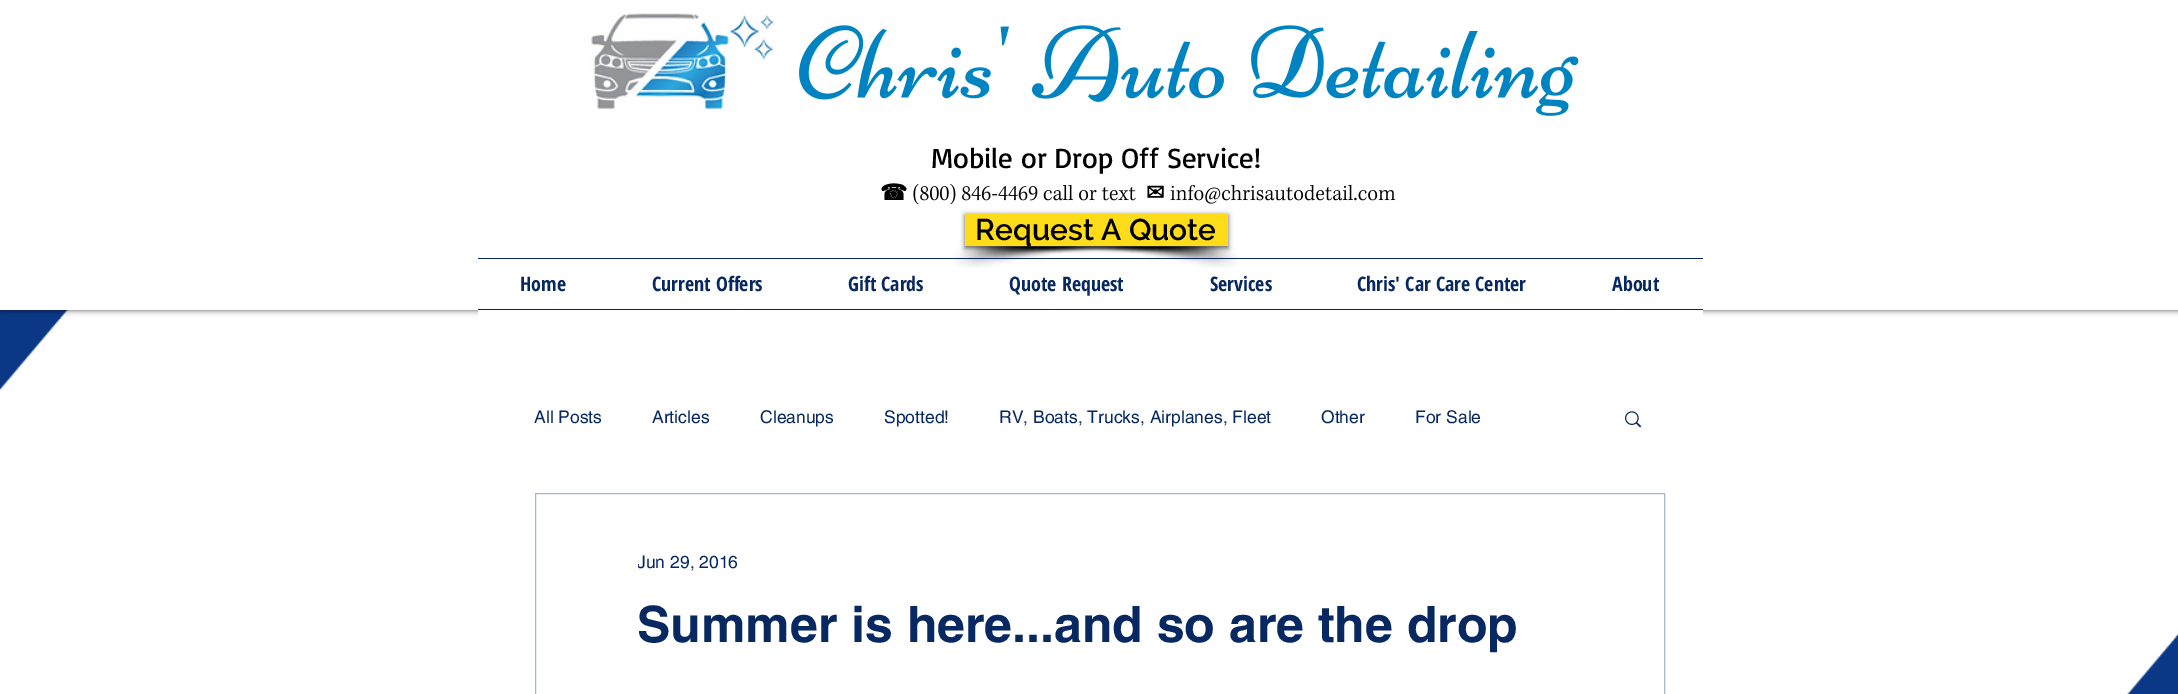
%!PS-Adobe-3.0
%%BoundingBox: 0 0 2178 694
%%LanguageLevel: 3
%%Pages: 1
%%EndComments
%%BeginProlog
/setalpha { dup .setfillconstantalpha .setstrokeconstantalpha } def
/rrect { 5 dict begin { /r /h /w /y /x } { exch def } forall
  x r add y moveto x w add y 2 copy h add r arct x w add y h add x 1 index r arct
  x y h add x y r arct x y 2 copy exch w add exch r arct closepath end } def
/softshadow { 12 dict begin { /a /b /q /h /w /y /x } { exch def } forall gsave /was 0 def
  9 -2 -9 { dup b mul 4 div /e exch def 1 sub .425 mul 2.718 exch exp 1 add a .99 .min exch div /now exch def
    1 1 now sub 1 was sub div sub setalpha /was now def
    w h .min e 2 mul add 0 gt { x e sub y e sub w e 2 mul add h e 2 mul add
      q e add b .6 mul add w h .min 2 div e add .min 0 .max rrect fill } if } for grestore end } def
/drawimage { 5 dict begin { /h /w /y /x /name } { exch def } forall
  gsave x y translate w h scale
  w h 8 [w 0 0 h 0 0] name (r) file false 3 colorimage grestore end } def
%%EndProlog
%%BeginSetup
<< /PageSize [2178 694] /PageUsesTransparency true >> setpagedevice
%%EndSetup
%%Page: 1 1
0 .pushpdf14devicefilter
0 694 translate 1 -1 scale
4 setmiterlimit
1 setgray
0 0 2178 694 rectfill
(images/8.raw) 0 310 2178 384 drawimage
0 setgray
0 0 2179 310 0 3 0.7 softshadow
1 setgray
0 0 2178 310 rectfill
(images/1.raw) 591 13 183 96 drawimage
(images/2.raw) 799 25 780 91 drawimage
(images/3.raw) 913 183 223 22 drawimage
(images/4.raw) 1170 184 226 20 drawimage
(images/5.raw) 954 246 184 22 drawimage
(images/6.raw) 1067 246 171 22 drawimage
0 setgray
965 215 263 33 0 2.5 0.6 softshadow
1 0.863 0.098 setrgbcolor
965 214 263 32 rectfill
0.027 0.157 0.376 setrgbcolor
478 258 1225 1 rectfill
478 309 1225 1 rectfill
1 setgray
478 310 1225 7 rectfill
(images/7.raw) 1625 411 17 17 drawimage
0.643 0.714 0.82 setrgbcolor
535.5 493.5 1129 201 rectstroke
/Basic-Regular [28.75 0 0 -28.75 0 0] selectfont
0 setgray
931 168 moveto (Mobile or Drop Off Service!) show
/DejaVuSans-Bold [22 0 0 -22 0 0] selectfont
880 200 moveto (☎) show
1146 200 moveto (✉) show
/Raleway-SemiBold [30 0 0 -30 0 0] selectfont
975 240 moveto (Request A Quote) show
/OpenSansCondensed-Bold [20 0 0 -20 0 0] selectfont
0.027 0.157 0.376 setrgbcolor
520 291 moveto (Home) show
652 291 moveto (Current Offers) show
848 291 moveto (Gift Cards) show
1009 291 moveto (Quote Request) show
1210 291 moveto (Services) show
1357 291 moveto (Chris' Car Care Center) show
1612 291 moveto (About) show
/helvetica-Regular [17.5 0 0 -17.5 0 0] selectfont
534 423 moveto (All Posts) show
652 423 moveto (Articles) show
760 423 moveto (Cleanups) show
884 423 moveto (Spotted!) show
999 423 moveto (RV, Boats, Trucks, Airplanes, Fleet) show
1321 423 moveto (Other) show
1415 423 moveto (For Sale) show
gsave
638 549 100 26 rectclip
637 568 moveto (Jun 29, 2016) show
grestore
/helvetica-Bold [50 0 0 -50 0 0] selectfont
637 642 moveto (Summer is here...and so are the drop) show
.poppdf14devicefilter showpage
%%EOF
